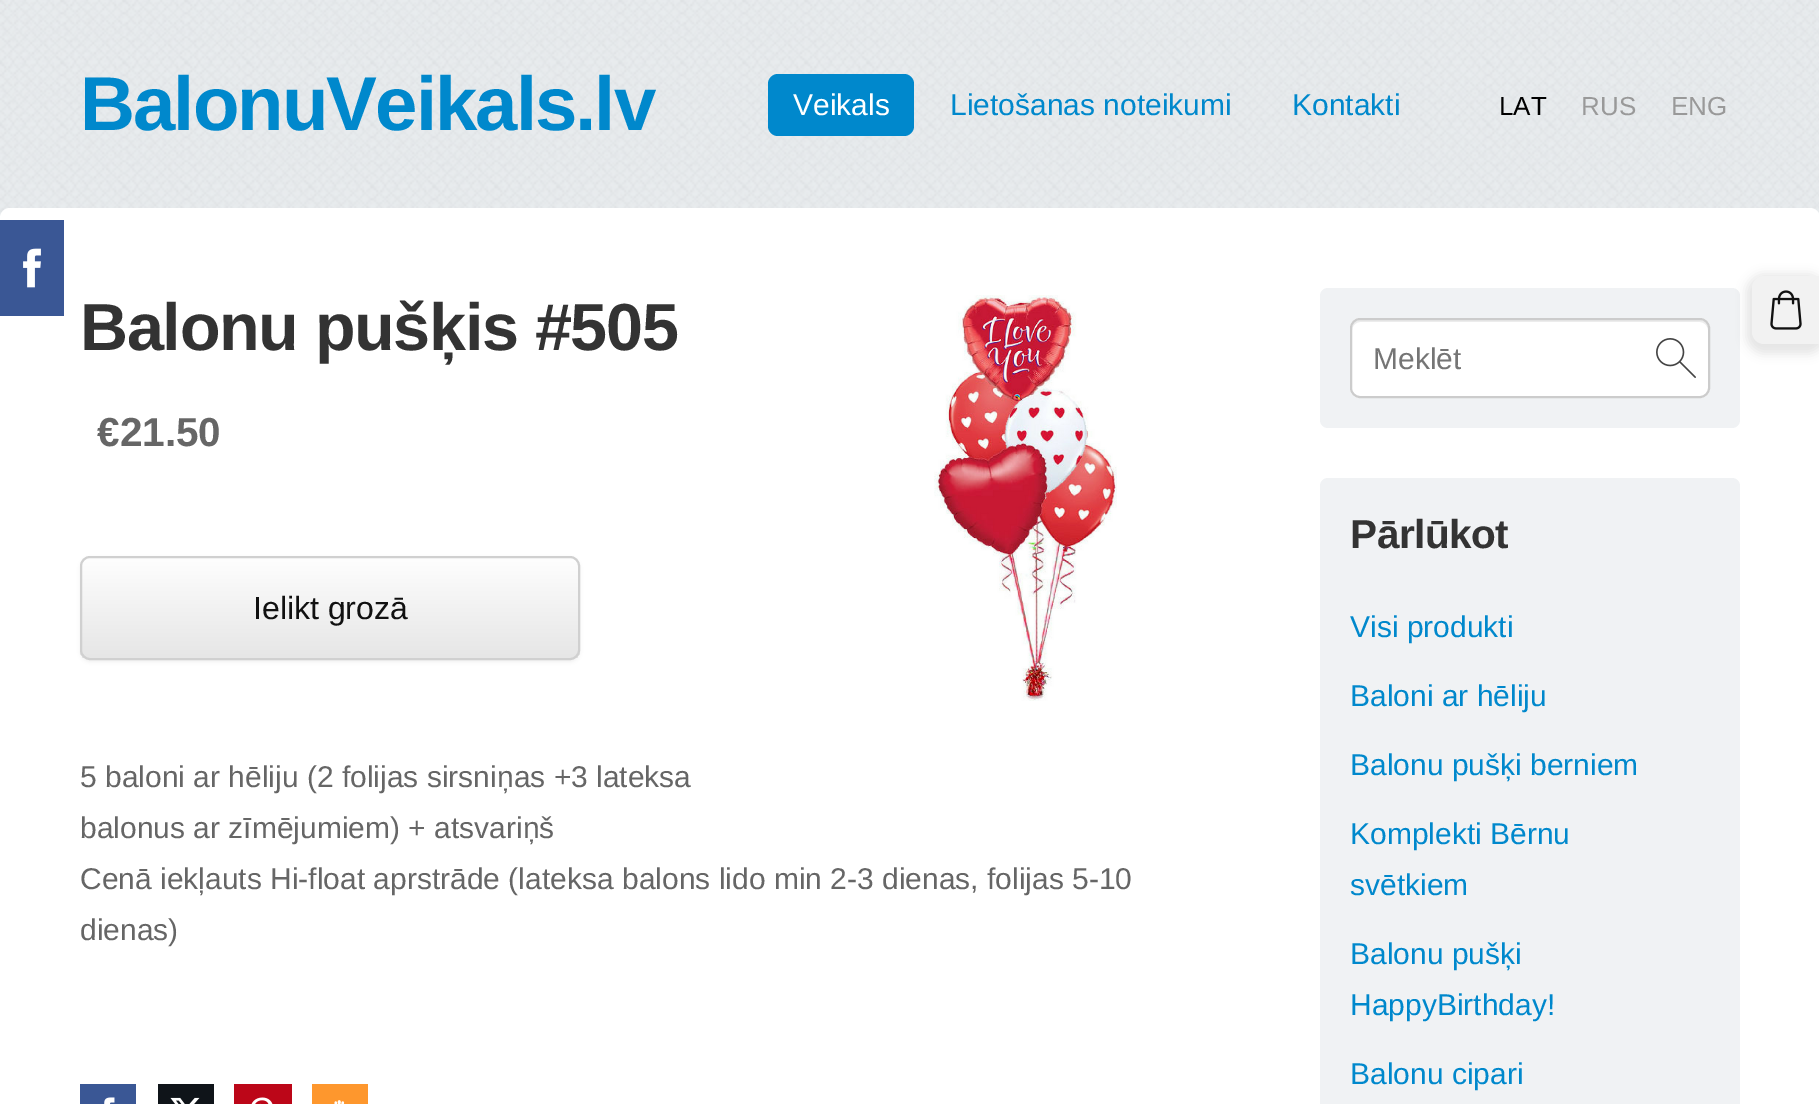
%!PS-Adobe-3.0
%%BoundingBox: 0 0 1819 1104
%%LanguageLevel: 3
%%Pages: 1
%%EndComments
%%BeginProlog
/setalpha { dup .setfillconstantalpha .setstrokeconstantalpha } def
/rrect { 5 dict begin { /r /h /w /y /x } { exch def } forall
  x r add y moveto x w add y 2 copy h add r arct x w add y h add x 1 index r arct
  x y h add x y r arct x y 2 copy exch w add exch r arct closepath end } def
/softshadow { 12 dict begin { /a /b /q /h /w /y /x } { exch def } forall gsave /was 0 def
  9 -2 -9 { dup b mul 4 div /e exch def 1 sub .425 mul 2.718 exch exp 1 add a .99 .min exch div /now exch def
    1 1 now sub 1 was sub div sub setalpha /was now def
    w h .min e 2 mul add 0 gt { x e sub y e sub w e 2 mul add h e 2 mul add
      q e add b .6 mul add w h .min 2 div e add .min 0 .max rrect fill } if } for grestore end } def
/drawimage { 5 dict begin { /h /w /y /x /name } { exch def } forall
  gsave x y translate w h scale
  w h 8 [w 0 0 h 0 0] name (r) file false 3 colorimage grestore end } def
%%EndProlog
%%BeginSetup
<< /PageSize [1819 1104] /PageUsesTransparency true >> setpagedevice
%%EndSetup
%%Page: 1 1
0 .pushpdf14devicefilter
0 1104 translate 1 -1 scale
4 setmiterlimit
1 setgray
0 0 1819 1104 rectfill
(images/1.raw) 0 0 1819 218 drawimage
0 208 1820 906 10 rrect fill
0.227 0.341 0.584 setrgbcolor
0 220 64 96 rectfill
(images/2.raw) 23 248 18 40 drawimage
0 0.533 0.8 setrgbcolor
768 74 146 62 10 rrect fill
(images/3.raw) 934 295 183 406 drawimage
0 setgray
80 558 500 104 10 2 0.05 softshadow
gsave
80 556 500 104 10 rrect clip newpath
gsave newpath 80 558 moveto 580 558 lineto 580 658 lineto 80 658 lineto closepath clip newpath
<< /ShadingType 2 /ColorSpace /DeviceRGB /Coords [330 558 330 658] /Extend [true true] /Function << /FunctionType 2 /Domain [0 1] /C0 [0.996 0.996 0.996] /C1 [0.902 0.902 0.902] /N 1 >> >> shfill grestore
grestore
0.816 setgray
2 setlinewidth
81 557 498 102 9 rrect stroke
0.227 0.341 0.584 setrgbcolor
80 1084 56 20 rectfill
(images/4.raw) 104 1097 11 7 drawimage
0.059 0.078 0.098 setrgbcolor
158 1084 56 20 rectfill
(images/5.raw) 170 1097 30 7 drawimage
0.737 0.024 0.094 setrgbcolor
234 1084 58 20 rectfill
(images/6.raw) 251 1097 22 7 drawimage
0.996 0.592 0.176 setrgbcolor
312 1084 56 20 rectfill
(images/7.raw) 334 1100 11 4 drawimage
0.941 0.949 0.957 setrgbcolor
1320 288 420 140 8 rrect fill
1 setgray
1350 318 360 80 10 rrect fill
0.925 setgray
newpath 1360 322 moveto 1700 322 lineto 1704 322 1708 326 1708 330 curveto 1708 328 lineto 1708 324 1704 320 1700 320 curveto 1360 320 lineto 1356 320 1352 324 1352 328 curveto 1352 330 lineto 1352 326 1356 322 1360 322 curveto closepath fill
0.8 setgray
1351 319 358 78 9 rrect stroke
(images/8.raw) 1656 338 40 40 drawimage
0.941 0.949 0.957 setrgbcolor
1320 478 420 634 8 rrect fill
0 setgray
1746 274 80 80 18 5 0.1 softshadow
0.949 setgray
newpath 1764 276 moveto 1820 276 lineto 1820 344 lineto 1764 344 lineto 1757.5 344 1752 338.5 1752 332 curveto 1752 288 lineto 1752 281.5 1757.5 276 1764 276 curveto closepath fill
(images/9.raw) 1770 290 32 40 drawimage
/LiberationSans-Bold [76.25 0 0 -76.25 0 0] selectfont
0 0.533 0.8 setrgbcolor
80 130 moveto -2 0 (BalonuVeikals.lv) ashow
/LiberationSans-Regular [30 0 0 -30 0 0] selectfont
1 setgray
793 115 moveto (Veikals) show
0 0.533 0.8 setrgbcolor
950 115 moveto (Lietošanas noteikumi) show
1292 115 moveto (Kontakti) show
/LiberationSans-Regular [26 0 0 -26 0 0] selectfont
0 setgray
1499 115 moveto (LAT) show
0.6 setgray
1581 115 moveto (RUS) show
1671 115 moveto (ENG) show
/LiberationSans-Bold [66.5 0 0 -66.5 0 0] selectfont
0.2 setgray
80 350 moveto -1.3 0 (Balonu pušķis #505) ashow
/LiberationSans-Bold [40.5 0 0 -40.5 0 0] selectfont
0.4 setgray
97 446 moveto (€21.50) show
/LiberationSans-Regular [32 0 0 -32 0 0] selectfont
0.067 setgray
253 619 moveto (Ielikt grozā) show
/LiberationSans-Regular [30 0 0 -30 0 0] selectfont
0.4 setgray
80 787 moveto (5 baloni ar hēliju \(2 folijas sirsniņas +3 lateksa) show
80 838 moveto (balonus ar zīmējumiem\) + atsvariņš) show
80 889 moveto (Cenā iekļauts Hi-float aprstrāde \(lateksa balons lido min 2-3 dienas, folijas 5-10) show
80 940 moveto (dienas\)) show
0.459 setgray
1373 369 moveto (Meklēt) show
/LiberationSans-Bold [40.5 0 0 -40.5 0 0] selectfont
0.2 setgray
1350 548 moveto -0.5 0 (Pārlūkot) ashow
/LiberationSans-Regular [30 0 0 -30 0 0] selectfont
0 0.533 0.8 setrgbcolor
1350 637 moveto (Visi produkti) show
1350 706 moveto (Baloni ar hēliju) show
1350 775 moveto (Balonu pušķi berniem) show
1350 844 moveto (Komplekti Bērnu) show
1350 895 moveto (svētkiem) show
1350 964 moveto (Balonu pušķi) show
1350 1015 moveto (HappyBirthday!) show
1350 1084 moveto (Balonu cipari) show
.poppdf14devicefilter showpage
%%EOF
